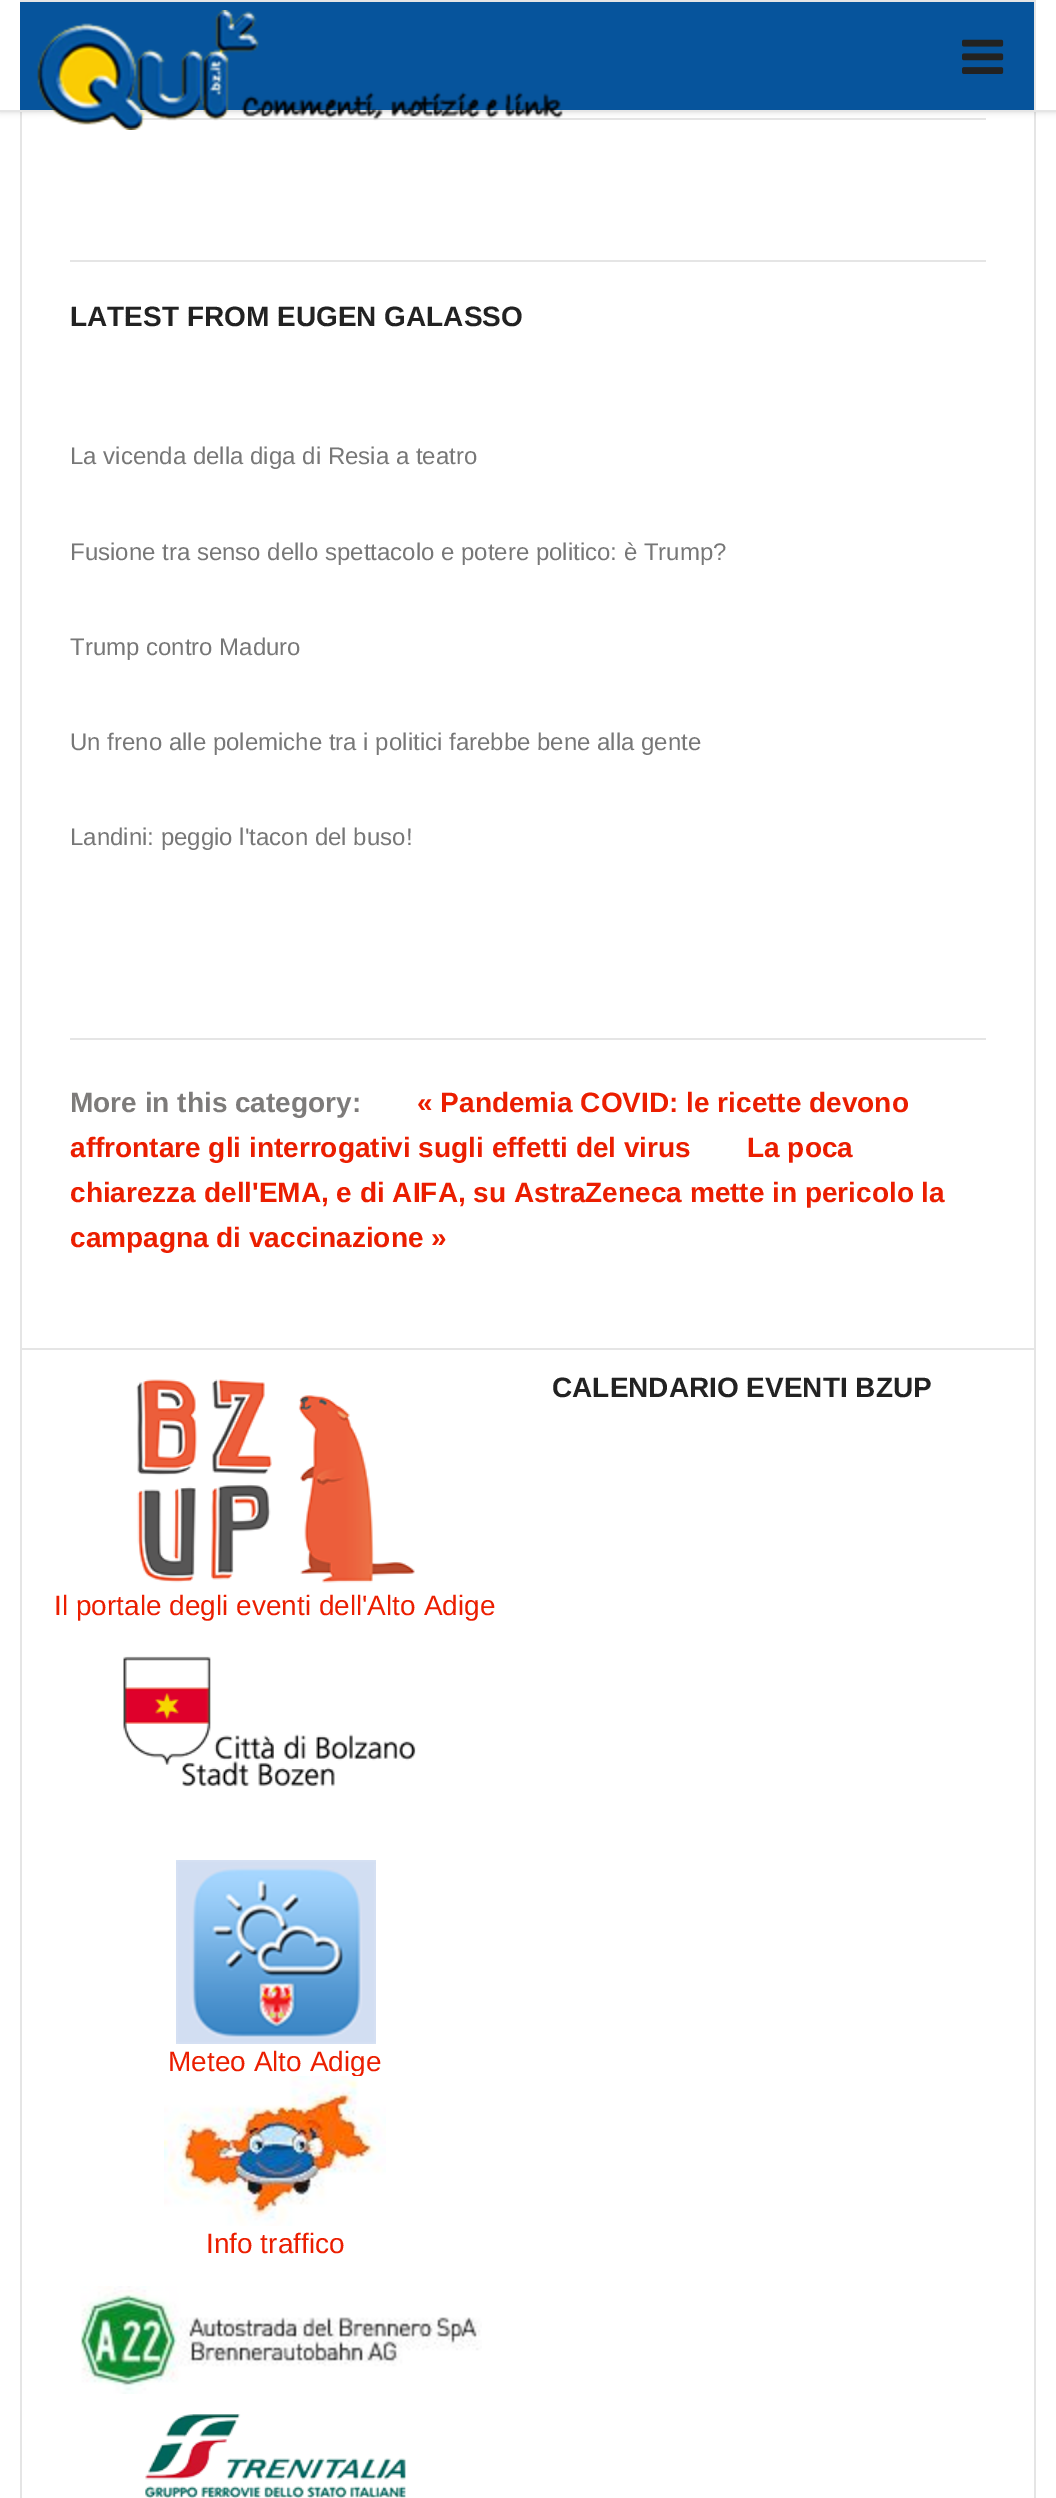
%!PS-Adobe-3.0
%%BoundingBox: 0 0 1056 2498
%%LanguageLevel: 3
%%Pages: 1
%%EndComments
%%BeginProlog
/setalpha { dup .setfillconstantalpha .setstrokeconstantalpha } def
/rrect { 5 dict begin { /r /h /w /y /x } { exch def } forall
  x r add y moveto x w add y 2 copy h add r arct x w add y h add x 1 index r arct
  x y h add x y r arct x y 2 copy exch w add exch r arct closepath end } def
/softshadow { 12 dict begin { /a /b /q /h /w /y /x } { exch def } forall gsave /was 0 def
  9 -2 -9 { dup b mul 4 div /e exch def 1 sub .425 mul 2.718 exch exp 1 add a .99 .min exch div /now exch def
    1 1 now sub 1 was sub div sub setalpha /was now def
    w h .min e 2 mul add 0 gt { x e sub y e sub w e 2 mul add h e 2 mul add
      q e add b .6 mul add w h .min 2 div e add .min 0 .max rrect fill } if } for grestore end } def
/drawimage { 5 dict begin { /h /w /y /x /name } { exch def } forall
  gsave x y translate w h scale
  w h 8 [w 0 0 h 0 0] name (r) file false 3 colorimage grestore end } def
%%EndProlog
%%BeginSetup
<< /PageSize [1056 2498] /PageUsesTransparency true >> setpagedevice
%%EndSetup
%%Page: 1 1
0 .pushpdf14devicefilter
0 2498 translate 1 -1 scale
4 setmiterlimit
1 setgray
0 0 1056 2498 rectfill
0.898 setgray
1034 112 2 2386 rectfill
20 112 2 2386 rectfill
70 118 916 2 rectfill
0 setgray
0 0 1056 112 0 3 0.15 softshadow
1 setgray
0 0 1056 110 rectfill
0.898 setgray
0 110 1056 2 rectfill
0.024 0.329 0.612 setrgbcolor
20 2 1014 108 rectfill
0.898 setgray
20 0 1016 2 rectfill
1034 0 2 110 rectfill
(images/1.raw) 962 39 42 35 drawimage
(images/2.raw) 37 10 526 120 drawimage
70 260 916 2 rectfill
70 1038 916 2 rectfill
22 1348 1012 2 rectfill
(images/3.raw) 136 1379 279 204 drawimage
(images/4.raw) 123 1656 293 131 drawimage
(images/5.raw) 176 1860 200 184 drawimage
(images/7.raw) 80 2286 402 108 drawimage
(images/8.raw) 145 2414 261 84 drawimage
/LiberationSans-Bold [28 0 0 -28 0 0] selectfont
0.133 setgray
70 326 moveto (LATEST FROM EUGEN GALASSO) show
/LiberationSans-Regular [24 0 0 -24 0 0] selectfont
0.467 setgray
70 464 moveto (La vicenda della diga di Resia a teatro) show
70 560 moveto (Fusione tra senso dello spettacolo e potere politico: è Trump?) show
70 655 moveto (Trump contro Maduro) show
70 750 moveto (Un freno alle polemiche tra i politici farebbe bene alla gente) show
70 845 moveto (Landini: peggio l'tacon del buso!) show
/LiberationSans-Bold [28 0 0 -28 0 0] selectfont
0.49 0.482 0.478 setrgbcolor
70 1112 moveto (More in this category:) show
0.922 0.118 0 setrgbcolor
417 1112 moveto (« Pandemia COVID: le ricette devono) show
70 1157 moveto (affrontare gli interrogativi sugli effetti del virus) show
747 1157 moveto (La poca) show
70 1202 moveto (chiarezza dell'EMA, e di AIFA, su AstraZeneca mette in pericolo la) show
70 1247 moveto (campagna di vaccinazione ») show
0.133 setgray
552 1397 moveto (CALENDARIO EVENTI BZUP) show
/LiberationSans-Regular [28 0 0 -28 0 0] selectfont
0.922 0.118 0 setrgbcolor
54 1615 moveto (Il portale degli eventi dell'Alto Adige) show
168 2071 moveto (Meteo Alto Adige) show
(images/6.raw) 164 2076 222 150 drawimage
206 2253 moveto (Info traffico) show
.poppdf14devicefilter showpage
%%EOF
